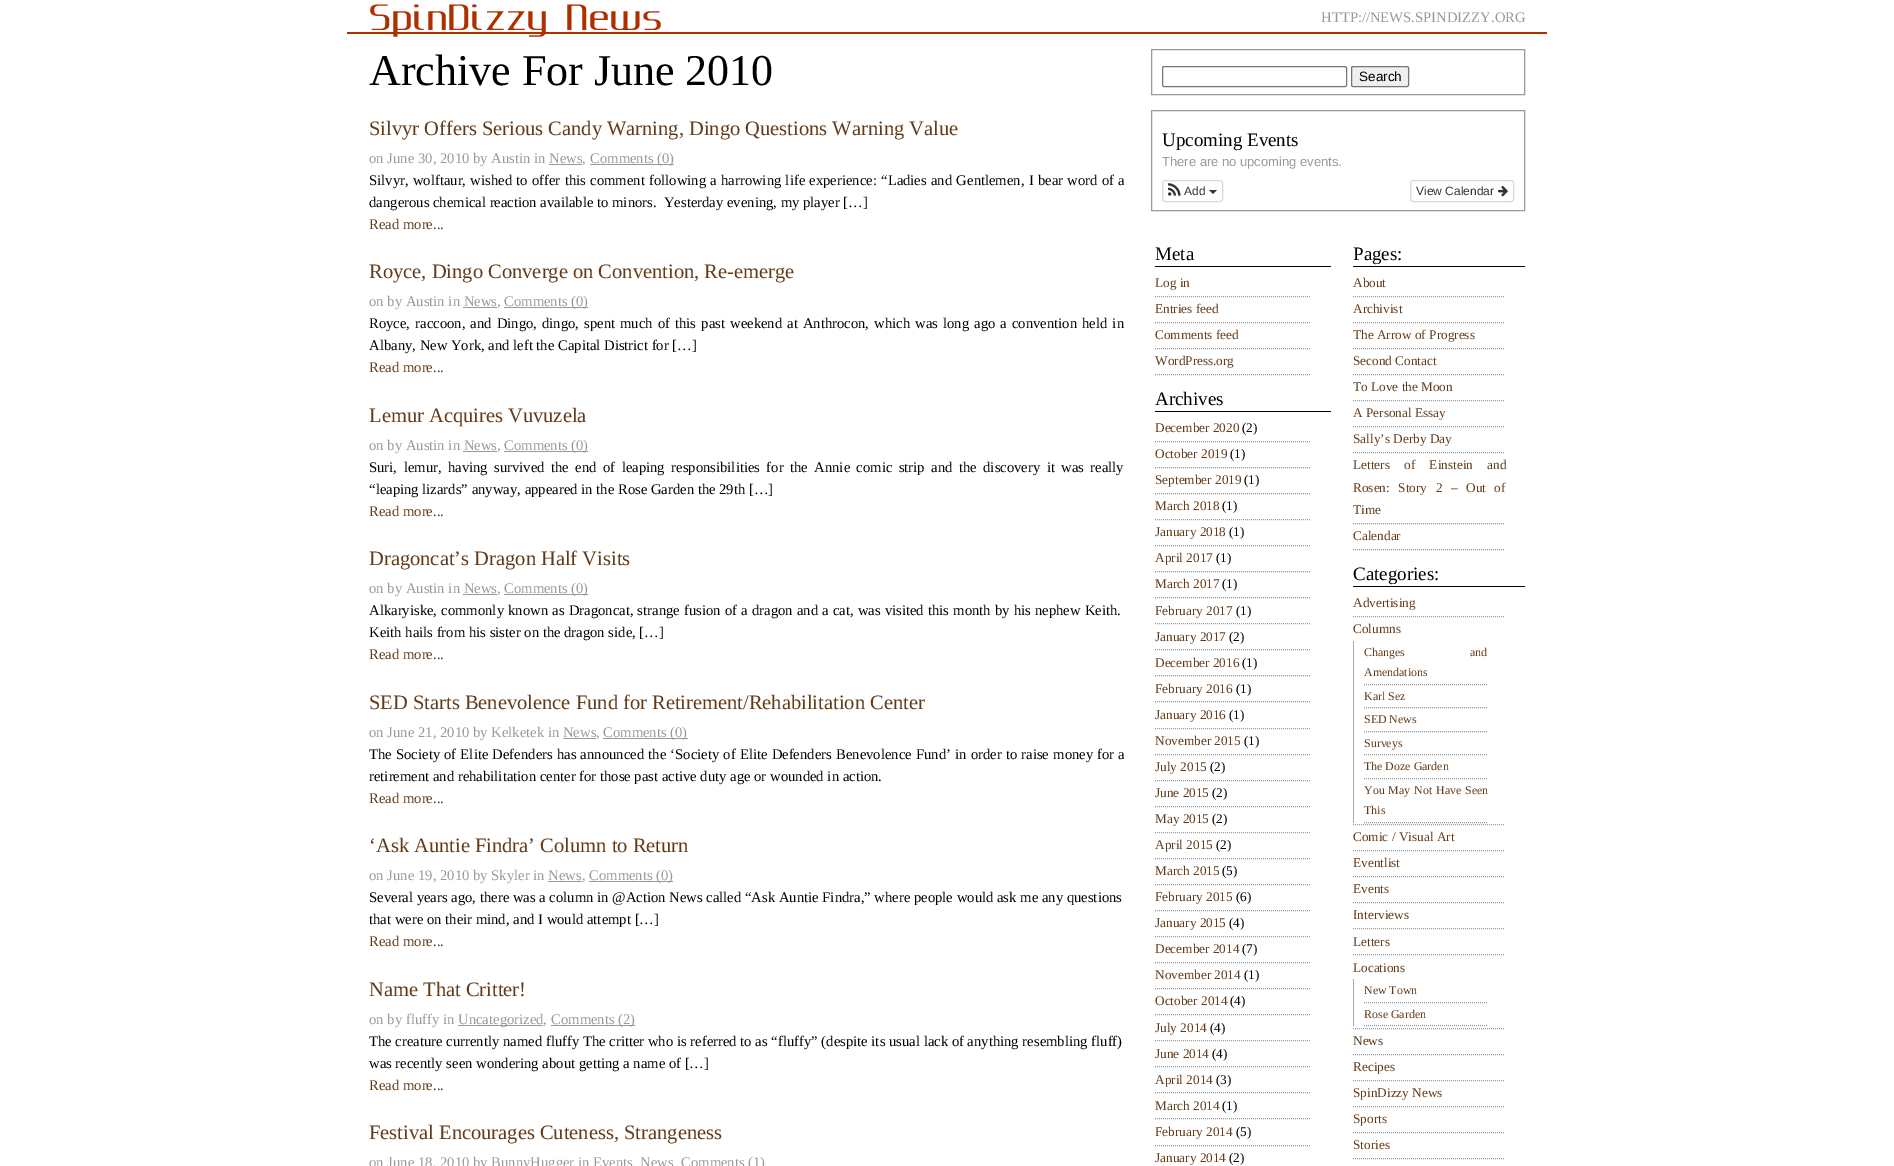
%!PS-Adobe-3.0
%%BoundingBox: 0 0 1894 1166
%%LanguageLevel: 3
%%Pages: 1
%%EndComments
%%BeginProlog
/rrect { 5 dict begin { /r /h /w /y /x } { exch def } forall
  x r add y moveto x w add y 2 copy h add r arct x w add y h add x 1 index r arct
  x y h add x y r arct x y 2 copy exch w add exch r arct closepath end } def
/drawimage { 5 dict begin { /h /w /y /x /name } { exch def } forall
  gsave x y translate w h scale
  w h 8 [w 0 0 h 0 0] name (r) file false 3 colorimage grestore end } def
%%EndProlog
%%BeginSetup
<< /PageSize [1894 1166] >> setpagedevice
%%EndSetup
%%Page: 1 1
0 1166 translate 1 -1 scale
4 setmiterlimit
1 setgray
0 0 1894 1166 rectfill
0.682 0.188 0 setrgbcolor
347 32 1200 2 rectfill
0.6 setgray
590 164 84 1 rectfill
549 164 33 1 rectfill
504 307 84 1 rectfill
463 307 34 1 rectfill
504 451 84 1 rectfill
463 451 34 1 rectfill
504 594 84 1 rectfill
463 594 34 1 rectfill
603 738 85 1 rectfill
563 738 33 1 rectfill
589 881 84 1 rectfill
548 881 34 1 rectfill
458 1025 85 1 rectfill
551 1025 84 1 rectfill
1151.5 49.5 373 45 rectstroke
0.463 setgray
1162.5 66.5 184 20 1.5 rrect stroke
0.937 setgray
1351.5 66.5 57 20 1.5 rrect gsave fill grestore
0.463 setgray
stroke
0.6 setgray
1151.5 110.5 373 100 rectstroke
0.851 setgray
1162.5 180.5 60 21 2.5 rrect stroke
(images/1.raw) 1168 183 13 13 drawimage
0.2 setgray
newpath 1209 190 moveto 1217 190 lineto 1213 194 lineto closepath fill
0.851 setgray
1410.5 180.5 103 21 2.5 rrect stroke
(images/2.raw) 1498 186 10 11 drawimage
0 setgray
1155 266 176 1 rectfill
0.6 setgray
[1 1] 0 setdash
newpath 1155 296.5 moveto 1311 296.5 lineto stroke
newpath 1155 322.5 moveto 1311 322.5 lineto stroke
newpath 1155 348.5 moveto 1311 348.5 lineto stroke
newpath 1155 374.5 moveto 1311 374.5 lineto stroke
0 setgray
1155 411 176 1 rectfill
0.6 setgray
newpath 1155 441.5 moveto 1311 441.5 lineto stroke
newpath 1155 467.5 moveto 1311 467.5 lineto stroke
newpath 1155 493.5 moveto 1311 493.5 lineto stroke
newpath 1155 519.5 moveto 1311 519.5 lineto stroke
newpath 1155 545.5 moveto 1311 545.5 lineto stroke
newpath 1155 571.5 moveto 1311 571.5 lineto stroke
newpath 1155 597.5 moveto 1311 597.5 lineto stroke
newpath 1155 623.5 moveto 1311 623.5 lineto stroke
newpath 1155 649.5 moveto 1311 649.5 lineto stroke
newpath 1155 675.5 moveto 1311 675.5 lineto stroke
newpath 1155 701.5 moveto 1311 701.5 lineto stroke
newpath 1155 728.5 moveto 1311 728.5 lineto stroke
newpath 1155 754.5 moveto 1311 754.5 lineto stroke
newpath 1155 780.5 moveto 1311 780.5 lineto stroke
newpath 1155 806.5 moveto 1311 806.5 lineto stroke
newpath 1155 832.5 moveto 1311 832.5 lineto stroke
newpath 1155 858.5 moveto 1311 858.5 lineto stroke
newpath 1155 884.5 moveto 1311 884.5 lineto stroke
newpath 1155 910.5 moveto 1311 910.5 lineto stroke
newpath 1155 936.5 moveto 1311 936.5 lineto stroke
newpath 1155 962.5 moveto 1311 962.5 lineto stroke
newpath 1155 988.5 moveto 1311 988.5 lineto stroke
newpath 1155 1014.5 moveto 1311 1014.5 lineto stroke
newpath 1155 1040.5 moveto 1311 1040.5 lineto stroke
newpath 1155 1066.5 moveto 1311 1066.5 lineto stroke
newpath 1155 1092.5 moveto 1311 1092.5 lineto stroke
newpath 1155 1118.5 moveto 1311 1118.5 lineto stroke
newpath 1155 1145.5 moveto 1311 1145.5 lineto stroke
0 setgray
1353 266 172 1 rectfill
0.6 setgray
newpath 1353 296.5 moveto 1505 296.5 lineto stroke
newpath 1353 322.5 moveto 1505 322.5 lineto stroke
newpath 1353 348.5 moveto 1505 348.5 lineto stroke
newpath 1353 374.5 moveto 1505 374.5 lineto stroke
newpath 1353 400.5 moveto 1505 400.5 lineto stroke
newpath 1353 426.5 moveto 1505 426.5 lineto stroke
newpath 1353 452.5 moveto 1505 452.5 lineto stroke
newpath 1353 523.5 moveto 1505 523.5 lineto stroke
newpath 1353 549.5 moveto 1505 549.5 lineto stroke
0 setgray
1353 586 172 1 rectfill
0.6 setgray
newpath 1353 616.5 moveto 1505 616.5 lineto stroke
newpath 1353 824.5 moveto 1505 824.5 lineto stroke
0.667 setgray
1353 641 1 182 rectfill
0.6 setgray
newpath 1364 684.5 moveto 1487 684.5 lineto stroke
newpath 1364 707.5 moveto 1487 707.5 lineto stroke
newpath 1364 731.5 moveto 1487 731.5 lineto stroke
newpath 1364 754.5 moveto 1487 754.5 lineto stroke
newpath 1364 778.5 moveto 1487 778.5 lineto stroke
newpath 1364 822.5 moveto 1487 822.5 lineto stroke
newpath 1353 850.5 moveto 1505 850.5 lineto stroke
newpath 1353 876.5 moveto 1505 876.5 lineto stroke
newpath 1353 902.5 moveto 1505 902.5 lineto stroke
newpath 1353 928.5 moveto 1505 928.5 lineto stroke
newpath 1353 954.5 moveto 1505 954.5 lineto stroke
newpath 1353 1028.5 moveto 1505 1028.5 lineto stroke
0.667 setgray
1353 979 1 47 rectfill
0.6 setgray
newpath 1364 1002.5 moveto 1487 1002.5 lineto stroke
newpath 1364 1025.5 moveto 1487 1025.5 lineto stroke
newpath 1353 1054.5 moveto 1505 1054.5 lineto stroke
newpath 1353 1080.5 moveto 1505 1080.5 lineto stroke
newpath 1353 1106.5 moveto 1505 1106.5 lineto stroke
newpath 1353 1132.5 moveto 1505 1132.5 lineto stroke
newpath 1353 1158.5 moveto 1505 1158.5 lineto stroke
/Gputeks-Bold [32.25 0 0 -32.25 0 0] selectfont
0.682 0.188 0 setrgbcolor
369 30 moveto (SpinDizzy News) show
/LiberationSerif-Regular [14.67 0 0 -14.67 0 0] selectfont
0.6 setgray
1321 22 moveto (HTTP://NEWS.SPINDIZZY.ORG) show
/LiberationSerif-Regular [44 0 0 -44 0 0] selectfont
0 setgray
369 85 moveto (Archive For June 2010) show
/LiberationSerif-Regular [20.5 0 0 -20.5 0 0] selectfont
0.388 0.231 0.094 setrgbcolor
369 135 moveto (Silvyr Offers Serious Candy Warning, Dingo Questions Warning Value) show
/LiberationSerif-Regular [14.67 0 0 -14.67 0 0] selectfont
0.6 setgray
369 163 moveto (on June 30, 2010 by Austin in News,) show
590 163 moveto (Comments \(0\)) show
0 setgray
369 185 moveto 0.6 0 32 (Silvyr, wolftaur, wished to offer this comment following a harrowing life experience: “Ladies and Gentlemen, I bear word of a) widthshow
369 207 moveto (dangerous chemical reaction available to minors.  Yesterday evening, my player […]) show
0.388 0.231 0.094 setrgbcolor
369 229 moveto (Read more...) show
/LiberationSerif-Regular [20.5 0 0 -20.5 0 0] selectfont
369 278 moveto (Royce, Dingo Converge on Convention, Re-emerge) show
/LiberationSerif-Regular [14.67 0 0 -14.67 0 0] selectfont
0.6 setgray
369 306 moveto (on by Austin in News,) show
504 306 moveto (Comments \(0\)) show
0 setgray
369 328 moveto 1.4 0 32 (Royce, raccoon, and Dingo, dingo, spent much of this past weekend at Anthrocon, which was long ago a convention held in) widthshow
369 350 moveto (Albany, New York, and left the Capital District for […]) show
0.388 0.231 0.094 setrgbcolor
369 372 moveto (Read more...) show
/LiberationSerif-Regular [20.5 0 0 -20.5 0 0] selectfont
369 422 moveto (Lemur Acquires Vuvuzela) show
/LiberationSerif-Regular [14.67 0 0 -14.67 0 0] selectfont
0.6 setgray
369 450 moveto (on by Austin in News,) show
504 450 moveto (Comments \(0\)) show
0 setgray
369 472 moveto 2.75 0 32 (Suri, lemur, having survived the end of leaping responsibilities for the Annie comic strip and the discovery it was really) widthshow
369 494 moveto (“leaping lizards” anyway, appeared in the Rose Garden the 29th […]) show
0.388 0.231 0.094 setrgbcolor
369 516 moveto (Read more...) show
/LiberationSerif-Regular [20.5 0 0 -20.5 0 0] selectfont
369 565 moveto (Dragoncat’s Dragon Half Visits) show
/LiberationSerif-Regular [14.67 0 0 -14.67 0 0] selectfont
0.6 setgray
369 593 moveto (on by Austin in News,) show
504 593 moveto (Comments \(0\)) show
0 setgray
369 615 moveto 0.5 0 32 (Alkaryiske, commonly known as Dragoncat, strange fusion of a dragon and a cat, was visited this month by his nephew Keith.) widthshow
369 637 moveto (Keith hails from his sister on the dragon side, […]) show
0.388 0.231 0.094 setrgbcolor
369 659 moveto (Read more...) show
/LiberationSerif-Regular [20.5 0 0 -20.5 0 0] selectfont
369 709 moveto (SED Starts Benevolence Fund for Retirement/Rehabilitation Center) show
/LiberationSerif-Regular [14.67 0 0 -14.67 0 0] selectfont
0.6 setgray
369 737 moveto (on June 21, 2010 by Kelketek in News,) show
603 737 moveto (Comments \(0\)) show
0 setgray
369 759 moveto 0.5 0 32 (The Society of Elite Defenders has announced the ‘Society of Elite Defenders Benevolence Fund’ in order to raise money for a) widthshow
369 781 moveto (retirement and rehabilitation center for those past active duty age or wounded in action.) show
0.388 0.231 0.094 setrgbcolor
369 803 moveto (Read more...) show
/LiberationSerif-Regular [20.5 0 0 -20.5 0 0] selectfont
369 852 moveto (‘Ask Auntie Findra’ Column to Return) show
/LiberationSerif-Regular [14.67 0 0 -14.67 0 0] selectfont
0.6 setgray
369 880 moveto (on June 19, 2010 by Skyler in News,) show
589 880 moveto (Comments \(0\)) show
0 setgray
369 902 moveto (Several years ago, there was a column in @Action News called “Ask Auntie Findra,” where people would ask me any questions) show
369 924 moveto (that were on their mind, and I would attempt […]) show
0.388 0.231 0.094 setrgbcolor
369 946 moveto (Read more...) show
/LiberationSerif-Regular [20.5 0 0 -20.5 0 0] selectfont
369 996 moveto (Name That Critter!) show
/LiberationSerif-Regular [14.67 0 0 -14.67 0 0] selectfont
0.6 setgray
369 1024 moveto (on by fluffy in) show
458 1024 moveto (Uncategorized,) show
551 1024 moveto (Comments \(2\)) show
0 setgray
369 1046 moveto (The creature currently named fluffy The critter who is referred to as “fluffy” \(despite its usual lack of anything resembling fluff\)) show
369 1068 moveto (was recently seen wondering about getting a name of […]) show
0.388 0.231 0.094 setrgbcolor
369 1090 moveto (Read more...) show
/LiberationSerif-Regular [20.5 0 0 -20.5 0 0] selectfont
369 1139 moveto (Festival Encourages Cuteness, Strangeness) show
/LiberationSerif-Regular [14.67 0 0 -14.67 0 0] selectfont
0.6 setgray
369 1167 moveto (on June 18, 2010 by BunnyHugger in Events) show
640 1167 moveto (News) show
681 1167 moveto (Comments \(1\)) show
/LiberationSans-Regular [13.5 0 0 -13.5 0 0] selectfont
0 setgray
1359 81 moveto (Search) show
/LiberationSerif-Regular [19 0 0 -19 0 0] selectfont
1162 146 moveto (Upcoming Events) show
/LiberationSans-Regular [13 0 0 -13 0 0] selectfont
0.6 setgray
1162 166 moveto (There are no upcoming events.) show
/LiberationSans-Regular [12 0 0 -12 0 0] selectfont
0.2 setgray
1184 195 moveto (Add) show
1416 195 moveto (View Calendar) show
/LiberationSerif-Regular [19 0 0 -19 0 0] selectfont
0 setgray
1155 260 moveto (Meta) show
/LiberationSerif-Regular [13.25 0 0 -13.25 0 0] selectfont
0.388 0.231 0.094 setrgbcolor
1155 287 moveto (Log in) show
1155 313 moveto (Entries feed) show
1155 339 moveto (Comments feed) show
1155 365 moveto (WordPress.org) show
/LiberationSerif-Regular [19 0 0 -19 0 0] selectfont
0 setgray
1155 405 moveto (Archives) show
/LiberationSerif-Regular [13.25 0 0 -13.25 0 0] selectfont
0.388 0.231 0.094 setrgbcolor
1155 432 moveto (December 2020) show
0 setgray
1242 432 moveto (\(2\)) show
0.388 0.231 0.094 setrgbcolor
1155 458 moveto (October 2019) show
0 setgray
1230 458 moveto (\(1\)) show
0.388 0.231 0.094 setrgbcolor
1155 484 moveto (September 2019) show
0 setgray
1244 484 moveto (\(1\)) show
0.388 0.231 0.094 setrgbcolor
1155 510 moveto (March 2018) show
0 setgray
1222 510 moveto (\(1\)) show
0.388 0.231 0.094 setrgbcolor
1155 536 moveto (January 2018) show
0 setgray
1229 536 moveto (\(1\)) show
0.388 0.231 0.094 setrgbcolor
1155 562 moveto (April 2017) show
0 setgray
1216 562 moveto (\(1\)) show
0.388 0.231 0.094 setrgbcolor
1155 588 moveto (March 2017) show
0 setgray
1222 588 moveto (\(1\)) show
0.388 0.231 0.094 setrgbcolor
1155 615 moveto (February 2017) show
0 setgray
1236 615 moveto (\(1\)) show
0.388 0.231 0.094 setrgbcolor
1155 641 moveto (January 2017) show
0 setgray
1229 641 moveto (\(2\)) show
0.388 0.231 0.094 setrgbcolor
1155 667 moveto (December 2016) show
0 setgray
1242 667 moveto (\(1\)) show
0.388 0.231 0.094 setrgbcolor
1155 693 moveto (February 2016) show
0 setgray
1236 693 moveto (\(1\)) show
0.388 0.231 0.094 setrgbcolor
1155 719 moveto (January 2016) show
0 setgray
1229 719 moveto (\(1\)) show
0.388 0.231 0.094 setrgbcolor
1155 745 moveto (November 2015) show
0 setgray
1244 745 moveto (\(1\)) show
0.388 0.231 0.094 setrgbcolor
1155 771 moveto (July 2015) show
0 setgray
1210 771 moveto (\(2\)) show
0.388 0.231 0.094 setrgbcolor
1155 797 moveto (June 2015) show
0 setgray
1212 797 moveto (\(2\)) show
0.388 0.231 0.094 setrgbcolor
1155 823 moveto (May 2015) show
0 setgray
1212 823 moveto (\(2\)) show
0.388 0.231 0.094 setrgbcolor
1155 849 moveto (April 2015) show
0 setgray
1216 849 moveto (\(2\)) show
0.388 0.231 0.094 setrgbcolor
1155 875 moveto (March 2015) show
0 setgray
1222 875 moveto (\(5\)) show
0.388 0.231 0.094 setrgbcolor
1155 901 moveto (February 2015) show
0 setgray
1236 901 moveto (\(6\)) show
0.388 0.231 0.094 setrgbcolor
1155 927 moveto (January 2015) show
0 setgray
1229 927 moveto (\(4\)) show
0.388 0.231 0.094 setrgbcolor
1155 953 moveto (December 2014) show
0 setgray
1242 953 moveto (\(7\)) show
0.388 0.231 0.094 setrgbcolor
1155 979 moveto (November 2014) show
0 setgray
1244 979 moveto (\(1\)) show
0.388 0.231 0.094 setrgbcolor
1155 1005 moveto (October 2014) show
0 setgray
1230 1005 moveto (\(4\)) show
0.388 0.231 0.094 setrgbcolor
1155 1032 moveto (July 2014) show
0 setgray
1210 1032 moveto (\(4\)) show
0.388 0.231 0.094 setrgbcolor
1155 1058 moveto (June 2014) show
0 setgray
1212 1058 moveto (\(4\)) show
0.388 0.231 0.094 setrgbcolor
1155 1084 moveto (April 2014) show
0 setgray
1216 1084 moveto (\(3\)) show
0.388 0.231 0.094 setrgbcolor
1155 1110 moveto (March 2014) show
0 setgray
1222 1110 moveto (\(1\)) show
0.388 0.231 0.094 setrgbcolor
1155 1136 moveto (February 2014) show
0 setgray
1236 1136 moveto (\(5\)) show
0.388 0.231 0.094 setrgbcolor
1155 1162 moveto (January 2014) show
0 setgray
1229 1162 moveto (\(2\)) show
/LiberationSerif-Regular [19 0 0 -19 0 0] selectfont
1353 260 moveto (Pages:) show
/LiberationSerif-Regular [13.25 0 0 -13.25 0 0] selectfont
0.388 0.231 0.094 setrgbcolor
1353 287 moveto (About) show
1353 313 moveto (Archivist) show
1353 339 moveto (The Arrow of Progress) show
1353 365 moveto (Second Contact) show
1353 391 moveto (To Love the Moon) show
1353 417 moveto (A Personal Essay) show
1353 443 moveto (Sally’s Derby Day) show
1353 469 moveto 11 0 32 (Letters of Einstein and) widthshow
1353 492 moveto 5.25 0 32 (Rosen: Story 2 – Out of) widthshow
1353 514 moveto (Time) show
1353 540 moveto (Calendar) show
/LiberationSerif-Regular [19 0 0 -19 0 0] selectfont
0 setgray
1353 580 moveto (Categories:) show
/LiberationSerif-Regular [13.25 0 0 -13.25 0 0] selectfont
0.388 0.231 0.094 setrgbcolor
1353 607 moveto (Advertising) show
1353 633 moveto (Columns) show
/LiberationSerif-Regular [11.9 0 0 -11.9 0 0] selectfont
1364 656 moveto 62 0 32 (Changes and) widthshow
1364 676 moveto (Amendations) show
1364 700 moveto (Karl Sez) show
1364 723 moveto (SED News) show
1364 747 moveto (Surveys) show
1364 770 moveto (The Doze Garden) show
1364 794 moveto 1 0 32 (You May Not Have Seen) widthshow
1364 814 moveto (This) show
/LiberationSerif-Regular [13.25 0 0 -13.25 0 0] selectfont
1353 841 moveto (Comic / Visual Art) show
1353 867 moveto (Eventlist) show
1353 893 moveto (Events) show
1353 919 moveto (Interviews) show
1353 946 moveto (Letters) show
1353 972 moveto (Locations) show
/LiberationSerif-Regular [11.9 0 0 -11.9 0 0] selectfont
1364 994 moveto (New Town) show
1364 1018 moveto (Rose Garden) show
/LiberationSerif-Regular [13.25 0 0 -13.25 0 0] selectfont
1353 1045 moveto (News) show
1353 1071 moveto (Recipes) show
1353 1097 moveto (SpinDizzy News) show
1353 1123 moveto (Sports) show
1353 1149 moveto (Stories) show
showpage
%%EOF
